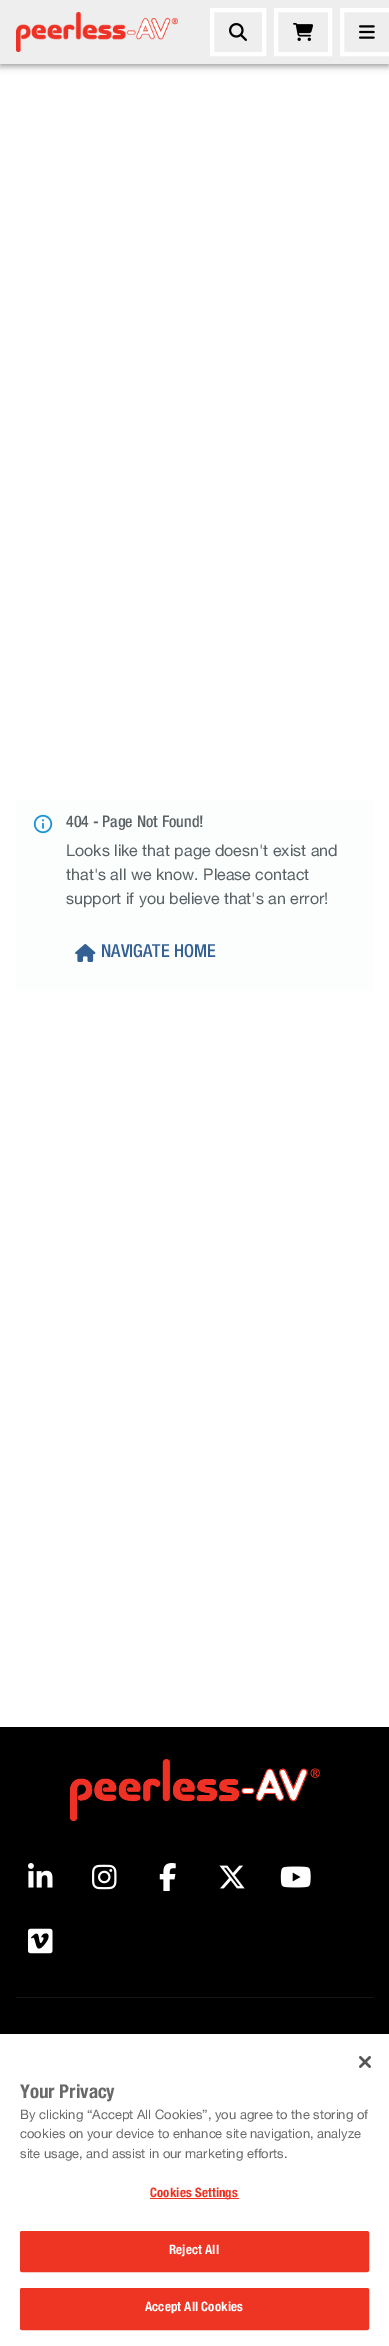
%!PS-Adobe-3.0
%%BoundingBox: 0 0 389 2346
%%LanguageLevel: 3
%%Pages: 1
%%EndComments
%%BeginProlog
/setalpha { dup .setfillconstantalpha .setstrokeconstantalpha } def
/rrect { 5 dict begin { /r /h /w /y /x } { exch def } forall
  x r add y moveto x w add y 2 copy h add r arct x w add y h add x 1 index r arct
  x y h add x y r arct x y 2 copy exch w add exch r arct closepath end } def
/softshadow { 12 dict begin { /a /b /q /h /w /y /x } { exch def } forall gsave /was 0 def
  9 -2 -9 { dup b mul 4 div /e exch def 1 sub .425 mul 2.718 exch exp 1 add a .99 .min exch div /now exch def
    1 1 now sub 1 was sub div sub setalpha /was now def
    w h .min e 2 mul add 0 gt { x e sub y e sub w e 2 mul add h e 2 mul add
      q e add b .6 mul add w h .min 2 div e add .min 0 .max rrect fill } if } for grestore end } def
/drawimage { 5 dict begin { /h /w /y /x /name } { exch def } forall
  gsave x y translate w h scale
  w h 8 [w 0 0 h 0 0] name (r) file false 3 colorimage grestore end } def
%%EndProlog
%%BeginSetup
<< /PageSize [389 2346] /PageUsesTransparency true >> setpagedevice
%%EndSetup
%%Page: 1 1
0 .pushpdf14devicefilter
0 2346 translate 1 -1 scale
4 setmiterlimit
1 setgray
0 0 389 2346 rectfill
0 setgray
0 1 389 64 0 5 0.12 softshadow
0 4 389 64 0 2.5 0.14 softshadow
1 3 387 62 0 2 0.2 softshadow
0.933 setgray
0 0 389 64 rectfill
(images/1.raw) 16 12 162 40 drawimage
1 setgray
4 setlinewidth
212 10 52 44 rectstroke
(images/2.raw) 229 23 18 18 drawimage
276 10 54 44 rectstroke
(images/3.raw) 293 23 21 18 drawimage
342 10 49 44 rectstroke
(images/4.raw) 359 25 16 14 drawimage
0.988 0.996 0.996 setrgbcolor
16 800 357 191 rectfill
(images/5.raw) 33 814 20 20 drawimage
(images/6.raw) 75 944 21 18 drawimage
0 setgray
0 1727 389 307 rectfill
(images/7.raw) 70 1759 250 62 drawimage
(images/8.raw) 28 1863 25 25 drawimage
(images/9.raw) 92 1864 25 26 drawimage
(images/10.raw) 159 1863 17 28 drawimage
(images/11.raw) 219 1865 26 24 drawimage
(images/12.raw) 280 1866 31 22 drawimage
(images/13.raw) 28 1928 25 26 drawimage
0.082 setgray
16 1997 357 1 rectfill
(images/14.raw) 359 2056 12 12 drawimage
0.933 0.204 0.137 setrgbcolor
150 2198 89 1 rectfill
20.5 2231.5 348 40 1.5 rrect gsave fill grestore
1 setlinewidth
stroke
20.5 2288.5 348 41 1.5 rrect gsave fill grestore
stroke
/HelveticaNeue-Medium [16 0 0 -16 0 0] selectfont
0.357 0.384 0.396 setrgbcolor
66 827 moveto (404 - Page Not Found!) show
/HelveticaNeue-Regular [16 0 0 -16 0 0] selectfont
66 856 moveto (Looks like that page doesn't exist and) show
66 880 moveto (that's all we know. Please contact) show
66 904 moveto (support if you believe that's an error!) show
/HelveticaNeue-Medium [18 0 0 -18 0 0] selectfont
0.204 0.376 0.58 setrgbcolor
101 957 moveto (NAVIGATE HOME) show
/HelveticaNeue-Bold [19 0 0 -19 0 0] selectfont
0.412 setgray
20 2098 moveto (Your Privacy) show
/HelveticaNeue-Regular [13 0 0 -13 0 0] selectfont
20 2119 moveto (By clicking “Accept All Cookies”, you agree to the storing of) show
20 2138 moveto (cookies on your device to enhance site navigation, analyze) show
20 2158 moveto (site usage, and assist in our marketing efforts.) show
/HelveticaNeue-Bold [13 0 0 -13 0 0] selectfont
0.933 0.204 0.137 setrgbcolor
150 2197 moveto 0.1 0 (Cookies Settings) ashow
1 setgray
169 2254 moveto 0.1 0 (Reject All) ashow
145 2311 moveto 0.1 0 (Accept All Cookies) ashow
.poppdf14devicefilter showpage
%%EOF
